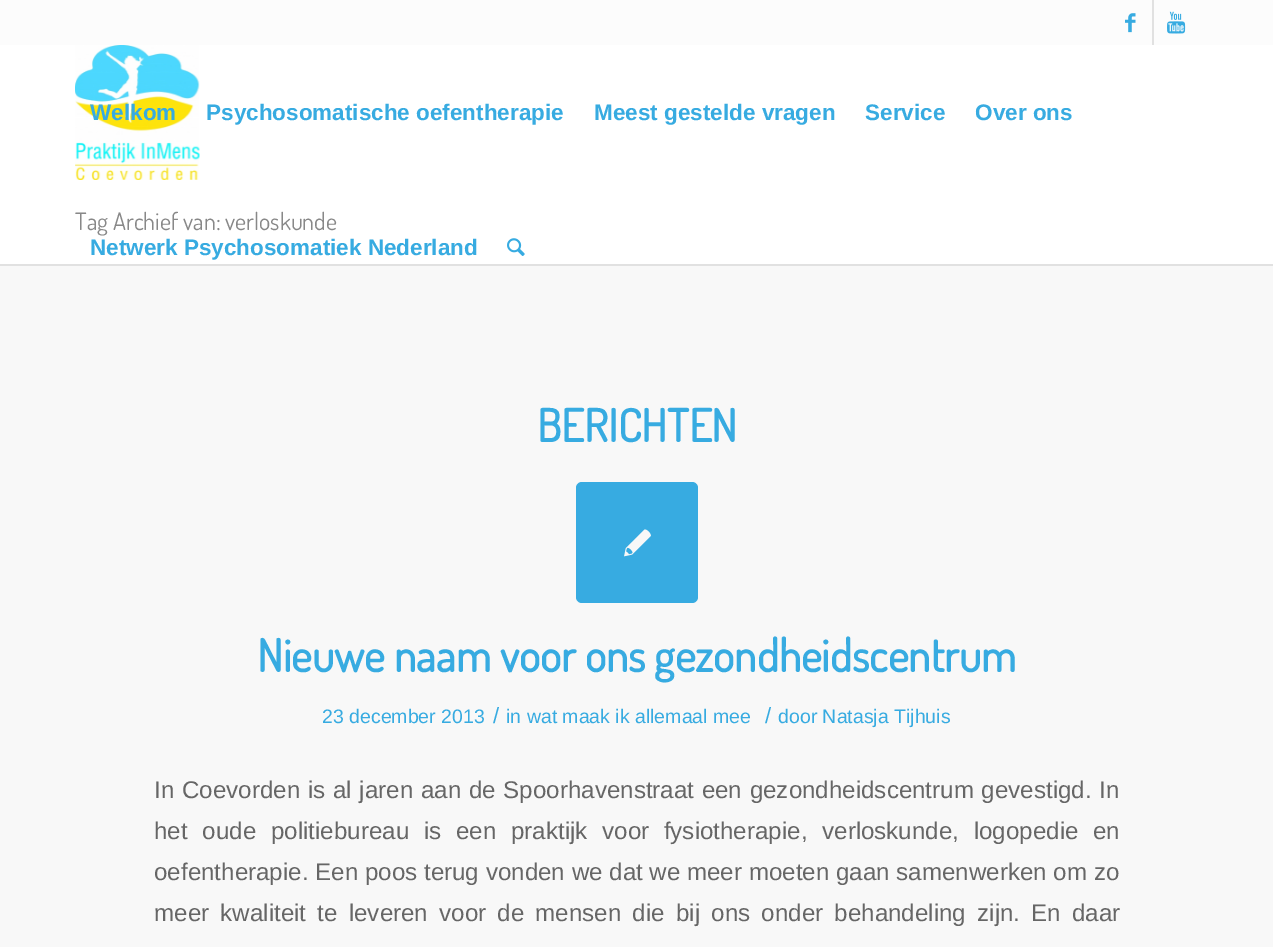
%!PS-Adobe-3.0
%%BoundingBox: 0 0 1273 947
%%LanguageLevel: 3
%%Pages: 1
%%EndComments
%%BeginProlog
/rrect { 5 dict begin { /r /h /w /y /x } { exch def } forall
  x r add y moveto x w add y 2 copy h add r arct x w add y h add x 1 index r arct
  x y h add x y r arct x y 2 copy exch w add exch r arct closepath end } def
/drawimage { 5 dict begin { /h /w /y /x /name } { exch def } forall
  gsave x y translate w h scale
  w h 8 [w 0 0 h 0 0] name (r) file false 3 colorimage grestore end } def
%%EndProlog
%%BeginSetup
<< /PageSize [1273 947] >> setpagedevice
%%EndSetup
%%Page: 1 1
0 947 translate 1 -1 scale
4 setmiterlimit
1 setgray
0 0 1273 947 rectfill
0.988 setgray
0 0 1273 45 rectfill
0.882 setgray
1152 0 2 45 rectfill
(images/1.raw) 1125 13 11 20 drawimage
(images/2.raw) 1167 11 19 23 drawimage
(images/3.raw) 75 45 125 135 drawimage
(images/4.raw) 507 238 18 18 drawimage
0.973 setgray
0 266 1273 681 rectfill
0.882 setgray
0 264 1273 2 rectfill
0.216 0.671 0.882 setrgbcolor
576 482 122 121 6 rrect fill
(images/5.raw) 624 529 27 28 drawimage
/LiberationSans-Bold [22.5 0 0 -22.5 0 0] selectfont
90 120 moveto (Welkom) show
206 120 moveto (Psychosomatische oefentherapie) show
594 120 moveto (Meest gestelde vragen) show
865 120 moveto (Service) show
975 120 moveto (Over ons) show
90 255 moveto (Netwerk Psychosomatiek Nederland) show
/Dosis-Regular [24 0 0 -24 0 0] selectfont
0.533 setgray
75 230 moveto (Tag Archief van: verloskunde) show
/Dosis-Bold [45 0 0 -45 0 0] selectfont
0.216 0.671 0.882 setrgbcolor
537 442 moveto (BERICHTEN) show
257 672 moveto (Nieuwe naam voor ons gezondheidscentrum) show
/LiberationSans-Regular [19.5 0 0 -19.5 0 0] selectfont
322 723 moveto (23 december 2013) show
/LiberationSans-Regular [22 0 0 -22 0 0] selectfont
493 723 moveto (/) show
/LiberationSans-Regular [19.5 0 0 -19.5 0 0] selectfont
506 723 moveto (in wat maak ik allemaal mee) show
/LiberationSans-Regular [22 0 0 -22 0 0] selectfont
765 723 moveto (/) show
/LiberationSans-Regular [19.5 0 0 -19.5 0 0] selectfont
778 723 moveto (door Natasja Tijhuis) show
/LiberationSans-Regular [24.15 0 0 -24.15 0 0] selectfont
0.4 setgray
154 798 moveto 1 0 32 (In Coevorden is al jaren aan de Spoorhavenstraat een gezondheidscentrum gevestigd. In) widthshow
154 839 moveto 8 0 32 (het oude politiebureau is een praktijk voor fysiotherapie, verloskunde, logopedie en) widthshow
154 880 moveto (oefentherapie. Een poos terug vonden we dat we meer moeten gaan samenwerken om zo) show
154 921 moveto 4.5 0 32 (meer kwaliteit te leveren voor de mensen die bij ons onder behandeling zijn. En daar) widthshow
showpage
%%EOF
